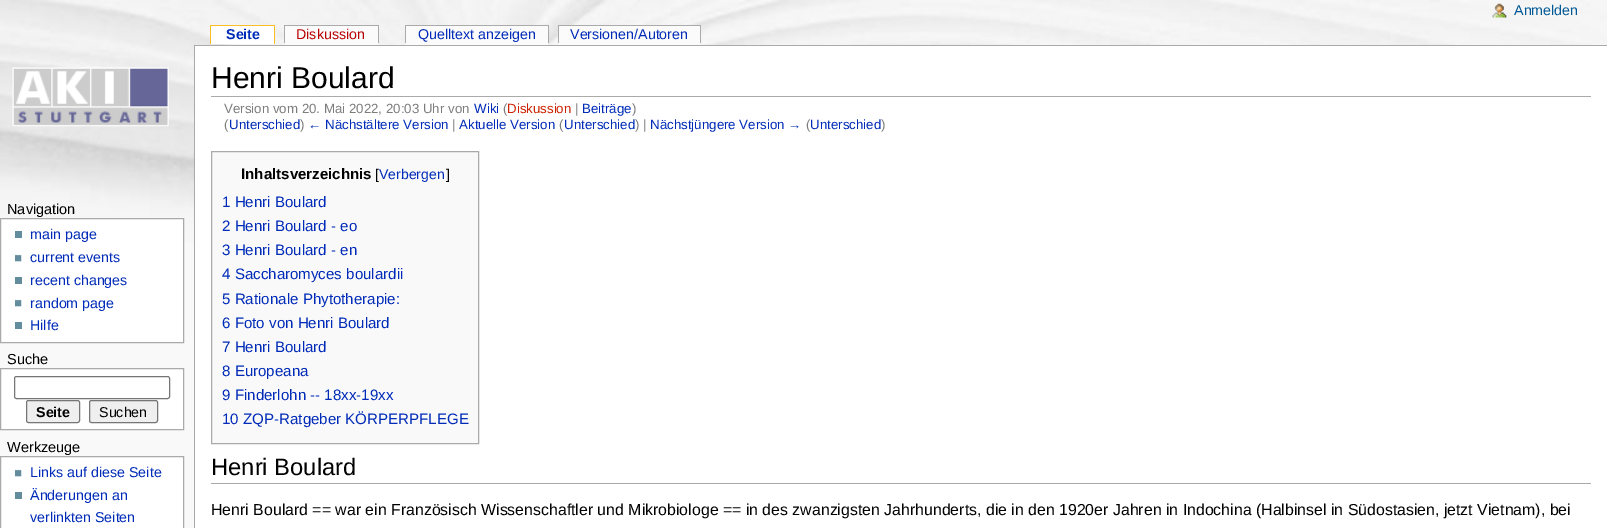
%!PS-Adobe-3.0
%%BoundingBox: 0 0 1607 528
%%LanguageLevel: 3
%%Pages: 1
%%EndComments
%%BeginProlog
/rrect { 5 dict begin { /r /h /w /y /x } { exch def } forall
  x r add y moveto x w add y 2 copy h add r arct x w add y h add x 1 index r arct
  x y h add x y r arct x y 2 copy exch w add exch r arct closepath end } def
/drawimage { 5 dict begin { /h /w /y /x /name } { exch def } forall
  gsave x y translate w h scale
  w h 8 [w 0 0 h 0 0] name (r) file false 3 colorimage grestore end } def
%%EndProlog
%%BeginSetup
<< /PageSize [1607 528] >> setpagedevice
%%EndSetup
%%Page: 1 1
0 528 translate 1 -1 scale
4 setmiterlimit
0.976 setgray
0 0 1607 528 rectfill
(images/1.raw) 0 0 1607 243 drawimage
(images/2.raw) 1492 3 15 15 drawimage
1 setgray
211 26 63 18 rectfill
0.98 0.741 0.137 setrgbcolor
210 25 65 1 rectfill
274 25 1 19 rectfill
210 25 1 19 rectfill
0.667 setgray
284 25 95 1 rectfill
378 25 1 18 rectfill
284 25 1 18 rectfill
0.984 setgray
285 26 93 19 rectfill
0.667 setgray
405 25 144 1 rectfill
548 25 1 18 rectfill
405 25 1 18 rectfill
0.984 setgray
406 26 142 19 rectfill
0.667 setgray
558 25 143 1 rectfill
700 25 1 18 rectfill
558 25 1 18 rectfill
0.984 setgray
559 26 141 19 rectfill
(images/3.raw) 12 67 157 60 drawimage
1 setgray
newpath 0.5 218.5 moveto 183.5 218.5 lineto 183.5 342.5 lineto 0.5 342.5 lineto closepath gsave fill grestore
0.667 setgray
stroke
0.388 0.549 0.612 setrgbcolor
15 231 7 7 rectfill
(images/4.raw) 15 254 7 8 drawimage
15 277 7 7 rectfill
(images/4.raw) 15 299 7 8 drawimage
15 322 7 7 rectfill
1 setgray
newpath 0.5 368.5 moveto 183.5 368.5 lineto 183.5 429.5 lineto 0.5 429.5 lineto closepath gsave fill grestore
0.667 setgray
stroke
0.463 setgray
14.5 376.5 155 22 2 rrect stroke
0.937 setgray
26.5 400.5 53 22 2 rrect gsave fill grestore
0.463 setgray
stroke
0.937 setgray
89.5 400.5 68 22 2 rrect gsave fill grestore
0.463 setgray
stroke
1 setgray
newpath 0.5 456.5 moveto 183.5 456.5 lineto 183.5 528.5 lineto 0.5 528.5 lineto closepath gsave fill grestore
0.667 setgray
stroke
(images/4.raw) 15 469 7 8 drawimage
0.388 0.549 0.612 setrgbcolor
15 492 7 7 rectfill
1 setgray
195 46 1412 482 rectfill
0.667 setgray
194 45 1413 1 rectfill
194 45 1 483 rectfill
211 96 1380 1 rectfill
0.976 setgray
newpath 211.5 151.5 moveto 478.5 151.5 lineto 478.5 443.5 lineto 211.5 443.5 lineto closepath gsave fill grestore
0.667 setgray
stroke
211 483 1380 1 rectfill
/LiberationSans-Regular [14.25 0 0 -14.25 0 0] selectfont
0 0.345 0.588 setrgbcolor
1514 15 moveto (Anmelden) show
/LiberationSans-Bold [14.25 0 0 -14.25 0 0] selectfont
0 0.169 0.722 setrgbcolor
226 39 moveto (Seite) show
/LiberationSans-Regular [14.25 0 0 -14.25 0 0] selectfont
0.729 0 0 setrgbcolor
296 39 moveto (Diskussion) show
0 0.169 0.722 setrgbcolor
418 39 moveto (Quelltext anzeigen) show
570 39 moveto (Versionen/Autoren) show
/LiberationSans-Regular [14.5 0 0 -14.5 0 0] selectfont
0 setgray
7 214 moveto (Navigation) show
/LiberationSans-Regular [14.25 0 0 -14.25 0 0] selectfont
0 0.169 0.722 setrgbcolor
30 239 moveto (main page) show
30 262 moveto (current events) show
30 285 moveto (recent changes) show
30 308 moveto (random page) show
30 330 moveto (Hilfe) show
/LiberationSans-Regular [14.5 0 0 -14.5 0 0] selectfont
0 setgray
7 364 moveto (Suche) show
/LiberationSans-Bold [14.25 0 0 -14.25 0 0] selectfont
36 417 moveto (Seite) show
/LiberationSans-Regular [14.25 0 0 -14.25 0 0] selectfont
99 417 moveto (Suchen) show
/LiberationSans-Regular [14.5 0 0 -14.5 0 0] selectfont
7 452 moveto (Werkzeuge) show
/LiberationSans-Regular [14.25 0 0 -14.25 0 0] selectfont
0 0.169 0.722 setrgbcolor
30 477 moveto (Links auf diese Seite) show
30 500 moveto (Änderungen an) show
30 522 moveto (verlinkten Seiten) show
/LiberationSans-Regular [30 0 0 -30 0 0] selectfont
0 setgray
211 88 moveto (Henri Boulard) show
/LiberationSans-Regular [13.3 0 0 -13.3 0 0] selectfont
0.49 setgray
224 113 moveto (Version vom 20. Mai 2022, 20:03 Uhr von) show
0 0.169 0.722 setrgbcolor
474 113 moveto (Wiki) show
0.49 setgray
503 113 moveto (\() show
0.8 0.133 0 setrgbcolor
507 113 moveto (Diskussion) show
0.49 setgray
575 113 moveto (|) show
0 0.169 0.722 setrgbcolor
582 113 moveto (Beiträge) show
0.49 setgray
632 113 moveto (\)) show
224 129 moveto (\() show
0 0.169 0.722 setrgbcolor
229 129 moveto (Unterschied) show
0.49 setgray
300 129 moveto (\)) show
0 0.169 0.722 setrgbcolor
308 129 moveto (← Nächstältere Version) show
0.49 setgray
452 129 moveto (|) show
0 0.169 0.722 setrgbcolor
459 129 moveto (Aktuelle Version) show
0.49 setgray
559 129 moveto (\() show
0 0.169 0.722 setrgbcolor
564 129 moveto (Unterschied) show
0.49 setgray
635 129 moveto (\) |) show
0 0.169 0.722 setrgbcolor
650 129 moveto (Nächstjüngere Version →) show
0.49 setgray
806 129 moveto (\() show
0 0.169 0.722 setrgbcolor
810 129 moveto (Unterschied) show
0.49 setgray
881 129 moveto (\)) show
/LiberationSans-Bold [15.1 0 0 -15.1 0 0] selectfont
0 setgray
241 179 moveto (Inhaltsverzeichnis) show
/LiberationSans-Regular [14 0 0 -14 0 0] selectfont
375 179 moveto ([) show
0 0.169 0.722 setrgbcolor
379 179 moveto (Verbergen) show
0 setgray
446 179 moveto (]) show
/LiberationSans-Regular [15.1 0 0 -15.1 0 0] selectfont
0 0.169 0.722 setrgbcolor
222 207 moveto (1 Henri Boulard) show
222 231 moveto (2 Henri Boulard - eo) show
222 255 moveto (3 Henri Boulard - en) show
222 279 moveto (4 Saccharomyces boulardii) show
222 304 moveto (5 Rationale Phytotherapie:) show
222 328 moveto (6 Foto von Henri Boulard) show
222 352 moveto (7 Henri Boulard) show
222 376 moveto (8 Europeana) show
222 400 moveto (9 Finderlohn -- 18xx-19xx) show
222 424 moveto (10 ZQP-Ratgeber KÖRPERPFLEGE) show
/LiberationSans-Regular [23.75 0 0 -23.75 0 0] selectfont
0 setgray
211 475 moveto (Henri Boulard) show
/LiberationSans-Regular [15.88 0 0 -15.88 0 0] selectfont
211 515 moveto (Henri Boulard == war ein Französisch Wissenschaftler und Mikrobiologe == in des zwanzigsten Jahrhunderts, die in den 1920er Jahren in Indochina \(Halbinsel in Südostasien, jetzt Vietnam\), bei) show
showpage
%%EOF
